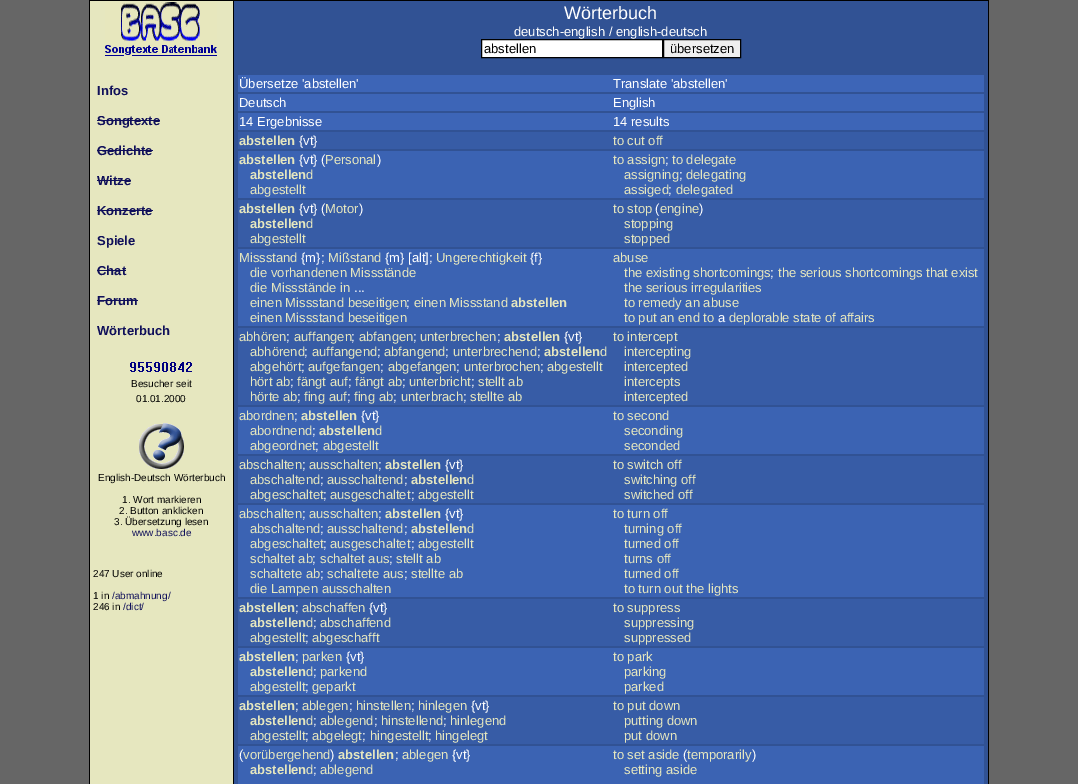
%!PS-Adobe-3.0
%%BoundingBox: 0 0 1078 784
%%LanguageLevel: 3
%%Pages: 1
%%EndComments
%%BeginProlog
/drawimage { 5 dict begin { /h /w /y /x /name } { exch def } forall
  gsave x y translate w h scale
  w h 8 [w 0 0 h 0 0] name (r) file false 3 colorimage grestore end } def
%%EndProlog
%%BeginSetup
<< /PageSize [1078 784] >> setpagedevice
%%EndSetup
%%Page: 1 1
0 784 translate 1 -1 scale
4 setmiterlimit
0.4 setgray
0 0 1078 784 rectfill
0 setgray
89 0 900 784 rectfill
0.902 0.906 0.749 setrgbcolor
90 1 143 783 rectfill
(images/1.raw) 105 2 112 54 drawimage
0.063 0.063 0.353 setrgbcolor
97 120 63 1 rectfill
97 150 56 1 rectfill
97 180 34 1 rectfill
97 210 56 1 rectfill
97 270 29 1 rectfill
97 300 41 1 rectfill
(images/2.raw) 130 362 62 10 drawimage
(images/3.raw) 139 423 45 46 drawimage
0.192 0.322 0.58 setrgbcolor
234 1 754 783 rectfill
1 setgray
newpath 481.5 39.5 moveto 662.5 39.5 lineto 662.5 57.5 lineto 481.5 57.5 lineto closepath gsave fill grestore
0 setgray
stroke
0.937 setgray
newpath 663.5 39.5 moveto 740.5 39.5 lineto 740.5 57.5 lineto 663.5 57.5 lineto closepath gsave fill grestore
0 setgray
stroke
0.239 0.396 0.718 setrgbcolor
238 75 746 17 rectfill
238 94 746 17 rectfill
238 113 746 17 rectfill
0.216 0.361 0.651 setrgbcolor
238 132 746 17 rectfill
0.231 0.388 0.702 setrgbcolor
238 151 746 47 rectfill
0.216 0.361 0.651 setrgbcolor
238 200 746 47 rectfill
0.231 0.388 0.702 setrgbcolor
238 249 746 77 rectfill
0.216 0.361 0.651 setrgbcolor
238 328 746 77 rectfill
0.231 0.388 0.702 setrgbcolor
238 407 746 47 rectfill
0.216 0.361 0.651 setrgbcolor
238 456 746 47 rectfill
0.231 0.388 0.702 setrgbcolor
238 505 746 92 rectfill
0.216 0.361 0.651 setrgbcolor
238 599 746 47 rectfill
0.231 0.388 0.702 setrgbcolor
238 648 746 47 rectfill
0.216 0.361 0.651 setrgbcolor
238 697 746 47 rectfill
0.231 0.388 0.702 setrgbcolor
238 746 746 38 rectfill
/LiberationSans-Bold [13 0 0 -13 0 0] selectfont
0.063 0.063 0.353 setrgbcolor
97 95 moveto (Infos) show
97 125 moveto (Songtexte) show
97 155 moveto (Gedichte) show
97 185 moveto (Witze) show
97 215 moveto (Konzerte) show
97 245 moveto (Spiele) show
97 275 moveto (Chat) show
97 305 moveto (Forum) show
97 335 moveto (Wörterbuch) show
/LiberationSans-Regular [10 0 0 -10 0 0] selectfont
0 setgray
131 387 moveto (Besucher seit) show
136 402 moveto (01.01.2000) show
98 481 moveto (English-Deutsch Wörterbuch) show
122 503 moveto (1. Wort markieren) show
119 514 moveto (2. Button anklicken) show
114 525 moveto (3. Übersetzung lesen) show
0.063 0.063 0.353 setrgbcolor
132 536 moveto (www.basc.de) show
0 setgray
93 577 moveto (247 User online) show
93 599 moveto (1 in) show
0.063 0.063 0.353 setrgbcolor
112 599 moveto (/abmahnung/) show
0 setgray
93 610 moveto (246 in) show
0.063 0.063 0.353 setrgbcolor
123 610 moveto (/dict/) show
/LiberationSans-Regular [18 0 0 -18 0 0] selectfont
1 setgray
564 19 moveto (Wörterbuch) show
/LiberationSans-Regular [13 0 0 -13 0 0] selectfont
514 36 moveto (deutsch-english / english-deutsch) show
0 setgray
484 53 moveto (abstellen) show
670 53 moveto (übersetzen) show
1 setgray
239 88 moveto (Übersetze 'abstellen') show
613 88 moveto (Translate 'abstellen') show
239 107 moveto (Deutsch) show
613 107 moveto (English) show
239 126 moveto (14 Ergebnisse) show
613 126 moveto (14 results) show
/LiberationSans-Bold [13 0 0 -13 0 0] selectfont
0.902 0.906 0.749 setrgbcolor
239 145 moveto (abstellen) show
/LiberationSans-Regular [13 0 0 -13 0 0] selectfont
1 setgray
299 145 moveto ({vt}) show
0.902 0.906 0.749 setrgbcolor
613 145 moveto (to cut off) show
/LiberationSans-Bold [13 0 0 -13 0 0] selectfont
239 164 moveto (abstellen) show
/LiberationSans-Regular [13 0 0 -13 0 0] selectfont
1 setgray
299 164 moveto ({vt} \() show
0.902 0.906 0.749 setrgbcolor
325 164 moveto (Personal) show
1 setgray
377 164 moveto (\)) show
/LiberationSans-Bold [13 0 0 -13 0 0] selectfont
0.902 0.906 0.749 setrgbcolor
250 179 moveto (abstellen) show
/LiberationSans-Regular [13 0 0 -13 0 0] selectfont
306 179 moveto (d) show
250 194 moveto (abgestellt) show
613 164 moveto (to assign) show
1 setgray
665 164 moveto (;) show
0.902 0.906 0.749 setrgbcolor
672 164 moveto (to delegate) show
624 179 moveto (assigning) show
1 setgray
679 179 moveto (;) show
0.902 0.906 0.749 setrgbcolor
686 179 moveto (delegating) show
624 194 moveto (assiged) show
1 setgray
668 194 moveto (;) show
0.902 0.906 0.749 setrgbcolor
676 194 moveto (delegated) show
/LiberationSans-Bold [13 0 0 -13 0 0] selectfont
239 213 moveto (abstellen) show
/LiberationSans-Regular [13 0 0 -13 0 0] selectfont
1 setgray
299 213 moveto ({vt} \() show
0.902 0.906 0.749 setrgbcolor
325 213 moveto (Motor) show
1 setgray
359 213 moveto (\)) show
/LiberationSans-Bold [13 0 0 -13 0 0] selectfont
0.902 0.906 0.749 setrgbcolor
250 228 moveto (abstellen) show
/LiberationSans-Regular [13 0 0 -13 0 0] selectfont
306 228 moveto (d) show
250 243 moveto (abgestellt) show
613 213 moveto (to stop) show
1 setgray
655 213 moveto (\() show
0.902 0.906 0.749 setrgbcolor
660 213 moveto (engine) show
1 setgray
699 213 moveto (\)) show
0.902 0.906 0.749 setrgbcolor
624 228 moveto (stopping) show
624 243 moveto (stopped) show
239 262 moveto (Missstand) show
1 setgray
301 262 moveto ({m};) show
0.902 0.906 0.749 setrgbcolor
328 262 moveto (Mißstand) show
1 setgray
385 262 moveto ({m} [alt];) show
0.902 0.906 0.749 setrgbcolor
436 262 moveto (Ungerechtigkeit) show
1 setgray
530 262 moveto ({f}) show
0.902 0.906 0.749 setrgbcolor
250 277 moveto (die vorhandenen Missstände) show
250 292 moveto (die Missstände in) show
1 setgray
354 292 moveto (...) show
0.902 0.906 0.749 setrgbcolor
250 307 moveto (einen Missstand beseitigen) show
1 setgray
406 307 moveto (;) show
0.902 0.906 0.749 setrgbcolor
414 307 moveto (einen Missstand) show
/LiberationSans-Bold [13 0 0 -13 0 0] selectfont
511 307 moveto (abstellen) show
/LiberationSans-Regular [13 0 0 -13 0 0] selectfont
250 322 moveto (einen Missstand beseitigen) show
613 262 moveto (abuse) show
624 277 moveto (the existing shortcomings) show
1 setgray
770 277 moveto (;) show
0.902 0.906 0.749 setrgbcolor
778 277 moveto (the serious shortcomings that exist) show
624 292 moveto (the serious irregularities) show
624 307 moveto (to remedy an abuse) show
624 322 moveto (to put an end to) show
1 setgray
718 322 moveto (a) show
0.902 0.906 0.749 setrgbcolor
729 322 moveto (deplorable state of affairs) show
239 341 moveto (abhören) show
1 setgray
286 341 moveto (;) show
0.902 0.906 0.749 setrgbcolor
294 341 moveto (auffangen) show
1 setgray
351 341 moveto (;) show
0.902 0.906 0.749 setrgbcolor
359 341 moveto (abfangen) show
1 setgray
413 341 moveto (;) show
0.902 0.906 0.749 setrgbcolor
420 341 moveto (unterbrechen) show
1 setgray
497 341 moveto (;) show
/LiberationSans-Bold [13 0 0 -13 0 0] selectfont
0.902 0.906 0.749 setrgbcolor
504 341 moveto (abstellen) show
/LiberationSans-Regular [13 0 0 -13 0 0] selectfont
1 setgray
564 341 moveto ({vt}) show
0.902 0.906 0.749 setrgbcolor
250 356 moveto (abhörend) show
1 setgray
304 356 moveto (;) show
0.902 0.906 0.749 setrgbcolor
312 356 moveto (auffangend) show
1 setgray
377 356 moveto (;) show
0.902 0.906 0.749 setrgbcolor
384 356 moveto (abfangend) show
1 setgray
445 356 moveto (;) show
0.902 0.906 0.749 setrgbcolor
453 356 moveto (unterbrechend) show
1 setgray
537 356 moveto (;) show
/LiberationSans-Bold [13 0 0 -13 0 0] selectfont
0.902 0.906 0.749 setrgbcolor
544 356 moveto (abstellen) show
/LiberationSans-Regular [13 0 0 -13 0 0] selectfont
600 356 moveto (d) show
250 371 moveto (abgehört) show
1 setgray
301 371 moveto (;) show
0.902 0.906 0.749 setrgbcolor
308 371 moveto (aufgefangen) show
1 setgray
380 371 moveto (;) show
0.902 0.906 0.749 setrgbcolor
388 371 moveto (abgefangen) show
1 setgray
456 371 moveto (;) show
0.902 0.906 0.749 setrgbcolor
464 371 moveto (unterbrochen) show
1 setgray
540 371 moveto (;) show
0.902 0.906 0.749 setrgbcolor
547 371 moveto (abgestellt) show
250 386 moveto (hört ab) show
1 setgray
290 386 moveto (;) show
0.902 0.906 0.749 setrgbcolor
297 386 moveto (fängt auf) show
1 setgray
348 386 moveto (;) show
0.902 0.906 0.749 setrgbcolor
355 386 moveto (fängt ab) show
1 setgray
402 386 moveto (;) show
0.902 0.906 0.749 setrgbcolor
409 386 moveto (unterbricht) show
1 setgray
471 386 moveto (;) show
0.902 0.906 0.749 setrgbcolor
478 386 moveto (stellt ab) show
250 401 moveto (hörte ab) show
1 setgray
297 401 moveto (;) show
0.902 0.906 0.749 setrgbcolor
304 401 moveto (fing auf) show
1 setgray
347 401 moveto (;) show
0.902 0.906 0.749 setrgbcolor
354 401 moveto (fing ab) show
1 setgray
393 401 moveto (;) show
0.902 0.906 0.749 setrgbcolor
401 401 moveto (unterbrach) show
1 setgray
463 401 moveto (;) show
0.902 0.906 0.749 setrgbcolor
470 401 moveto (stellte ab) show
613 341 moveto (to intercept) show
624 356 moveto (intercepting) show
624 371 moveto (intercepted) show
624 386 moveto (intercepts) show
624 401 moveto (intercepted) show
239 420 moveto (abordnen) show
1 setgray
294 420 moveto (;) show
/LiberationSans-Bold [13 0 0 -13 0 0] selectfont
0.902 0.906 0.749 setrgbcolor
301 420 moveto (abstellen) show
/LiberationSans-Regular [13 0 0 -13 0 0] selectfont
1 setgray
361 420 moveto ({vt}) show
0.902 0.906 0.749 setrgbcolor
250 435 moveto (abordnend) show
1 setgray
312 435 moveto (;) show
/LiberationSans-Bold [13 0 0 -13 0 0] selectfont
0.902 0.906 0.749 setrgbcolor
319 435 moveto (abstellen) show
/LiberationSans-Regular [13 0 0 -13 0 0] selectfont
375 435 moveto (d) show
250 450 moveto (abgeordnet) show
1 setgray
315 450 moveto (;) show
0.902 0.906 0.749 setrgbcolor
323 450 moveto (abgestellt) show
613 420 moveto (to second) show
624 435 moveto (seconding) show
624 450 moveto (seconded) show
239 469 moveto (abschalten) show
1 setgray
302 469 moveto (;) show
0.902 0.906 0.749 setrgbcolor
309 469 moveto (ausschalten) show
1 setgray
378 469 moveto (;) show
/LiberationSans-Bold [13 0 0 -13 0 0] selectfont
0.902 0.906 0.749 setrgbcolor
385 469 moveto (abstellen) show
/LiberationSans-Regular [13 0 0 -13 0 0] selectfont
1 setgray
445 469 moveto ({vt}) show
0.902 0.906 0.749 setrgbcolor
250 484 moveto (abschaltend) show
1 setgray
320 484 moveto (;) show
0.902 0.906 0.749 setrgbcolor
327 484 moveto (ausschaltend) show
1 setgray
404 484 moveto (;) show
/LiberationSans-Bold [13 0 0 -13 0 0] selectfont
0.902 0.906 0.749 setrgbcolor
411 484 moveto (abstellen) show
/LiberationSans-Regular [13 0 0 -13 0 0] selectfont
467 484 moveto (d) show
250 499 moveto (abgeschaltet) show
1 setgray
323 499 moveto (;) show
0.902 0.906 0.749 setrgbcolor
330 499 moveto (ausgeschaltet) show
1 setgray
411 499 moveto (;) show
0.902 0.906 0.749 setrgbcolor
418 499 moveto (abgestellt) show
613 469 moveto (to switch off) show
624 484 moveto (switching off) show
624 499 moveto (switched off) show
239 518 moveto (abschalten) show
1 setgray
302 518 moveto (;) show
0.902 0.906 0.749 setrgbcolor
309 518 moveto (ausschalten) show
1 setgray
378 518 moveto (;) show
/LiberationSans-Bold [13 0 0 -13 0 0] selectfont
0.902 0.906 0.749 setrgbcolor
385 518 moveto (abstellen) show
/LiberationSans-Regular [13 0 0 -13 0 0] selectfont
1 setgray
445 518 moveto ({vt}) show
0.902 0.906 0.749 setrgbcolor
250 533 moveto (abschaltend) show
1 setgray
320 533 moveto (;) show
0.902 0.906 0.749 setrgbcolor
327 533 moveto (ausschaltend) show
1 setgray
404 533 moveto (;) show
/LiberationSans-Bold [13 0 0 -13 0 0] selectfont
0.902 0.906 0.749 setrgbcolor
411 533 moveto (abstellen) show
/LiberationSans-Regular [13 0 0 -13 0 0] selectfont
467 533 moveto (d) show
250 548 moveto (abgeschaltet) show
1 setgray
323 548 moveto (;) show
0.902 0.906 0.749 setrgbcolor
330 548 moveto (ausgeschaltet) show
1 setgray
411 548 moveto (;) show
0.902 0.906 0.749 setrgbcolor
418 548 moveto (abgestellt) show
250 563 moveto (schaltet ab) show
1 setgray
312 563 moveto (;) show
0.902 0.906 0.749 setrgbcolor
320 563 moveto (schaltet aus) show
1 setgray
389 563 moveto (;) show
0.902 0.906 0.749 setrgbcolor
396 563 moveto (stellt ab) show
250 578 moveto (schaltete ab) show
1 setgray
320 578 moveto (;) show
0.902 0.906 0.749 setrgbcolor
327 578 moveto (schaltete aus) show
1 setgray
404 578 moveto (;) show
0.902 0.906 0.749 setrgbcolor
411 578 moveto (stellte ab) show
250 593 moveto (die Lampen ausschalten) show
613 518 moveto (to turn off) show
624 533 moveto (turning off) show
624 548 moveto (turned off) show
624 563 moveto (turns off) show
624 578 moveto (turned off) show
624 593 moveto (to turn out the lights) show
/LiberationSans-Bold [13 0 0 -13 0 0] selectfont
239 612 moveto (abstellen) show
/LiberationSans-Regular [13 0 0 -13 0 0] selectfont
1 setgray
295 612 moveto (;) show
0.902 0.906 0.749 setrgbcolor
302 612 moveto (abschaffen) show
1 setgray
369 612 moveto ({vt}) show
/LiberationSans-Bold [13 0 0 -13 0 0] selectfont
0.902 0.906 0.749 setrgbcolor
250 627 moveto (abstellen) show
/LiberationSans-Regular [13 0 0 -13 0 0] selectfont
306 627 moveto (d) show
1 setgray
313 627 moveto (;) show
0.902 0.906 0.749 setrgbcolor
320 627 moveto (abschaffend) show
250 642 moveto (abgestellt) show
1 setgray
305 642 moveto (;) show
0.902 0.906 0.749 setrgbcolor
312 642 moveto (abgeschafft) show
613 612 moveto (to suppress) show
624 627 moveto (suppressing) show
624 642 moveto (suppressed) show
/LiberationSans-Bold [13 0 0 -13 0 0] selectfont
239 661 moveto (abstellen) show
/LiberationSans-Regular [13 0 0 -13 0 0] selectfont
1 setgray
295 661 moveto (;) show
0.902 0.906 0.749 setrgbcolor
302 661 moveto (parken) show
1 setgray
346 661 moveto ({vt}) show
/LiberationSans-Bold [13 0 0 -13 0 0] selectfont
0.902 0.906 0.749 setrgbcolor
250 676 moveto (abstellen) show
/LiberationSans-Regular [13 0 0 -13 0 0] selectfont
306 676 moveto (d) show
1 setgray
313 676 moveto (;) show
0.902 0.906 0.749 setrgbcolor
320 676 moveto (parkend) show
250 691 moveto (abgestellt) show
1 setgray
305 691 moveto (;) show
0.902 0.906 0.749 setrgbcolor
312 691 moveto (geparkt) show
613 661 moveto (to park) show
624 676 moveto (parking) show
624 691 moveto (parked) show
/LiberationSans-Bold [13 0 0 -13 0 0] selectfont
239 710 moveto (abstellen) show
/LiberationSans-Regular [13 0 0 -13 0 0] selectfont
1 setgray
295 710 moveto (;) show
0.902 0.906 0.749 setrgbcolor
302 710 moveto (ablegen) show
1 setgray
349 710 moveto (;) show
0.902 0.906 0.749 setrgbcolor
356 710 moveto (hinstellen) show
1 setgray
411 710 moveto (;) show
0.902 0.906 0.749 setrgbcolor
418 710 moveto (hinlegen) show
1 setgray
471 710 moveto ({vt}) show
/LiberationSans-Bold [13 0 0 -13 0 0] selectfont
0.902 0.906 0.749 setrgbcolor
250 725 moveto (abstellen) show
/LiberationSans-Regular [13 0 0 -13 0 0] selectfont
306 725 moveto (d) show
1 setgray
313 725 moveto (;) show
0.902 0.906 0.749 setrgbcolor
320 725 moveto (ablegend) show
1 setgray
374 725 moveto (;) show
0.902 0.906 0.749 setrgbcolor
381 725 moveto (hinstellend) show
1 setgray
443 725 moveto (;) show
0.902 0.906 0.749 setrgbcolor
450 725 moveto (hinlegend) show
250 740 moveto (abgestellt) show
1 setgray
305 740 moveto (;) show
0.902 0.906 0.749 setrgbcolor
312 740 moveto (abgelegt) show
1 setgray
362 740 moveto (;) show
0.902 0.906 0.749 setrgbcolor
370 740 moveto (hingestellt) show
1 setgray
428 740 moveto (;) show
0.902 0.906 0.749 setrgbcolor
435 740 moveto (hingelegt) show
613 710 moveto (to put down) show
624 725 moveto (putting down) show
624 740 moveto (put down) show
1 setgray
239 759 moveto (\() show
0.902 0.906 0.749 setrgbcolor
243 759 moveto (vorübergehend) show
1 setgray
330 759 moveto (\)) show
/LiberationSans-Bold [13 0 0 -13 0 0] selectfont
0.902 0.906 0.749 setrgbcolor
338 759 moveto (abstellen) show
/LiberationSans-Regular [13 0 0 -13 0 0] selectfont
1 setgray
395 759 moveto (;) show
0.902 0.906 0.749 setrgbcolor
402 759 moveto (ablegen) show
1 setgray
452 759 moveto ({vt}) show
/LiberationSans-Bold [13 0 0 -13 0 0] selectfont
0.902 0.906 0.749 setrgbcolor
250 774 moveto (abstellen) show
/LiberationSans-Regular [13 0 0 -13 0 0] selectfont
306 774 moveto (d) show
1 setgray
313 774 moveto (;) show
0.902 0.906 0.749 setrgbcolor
320 774 moveto (ablegend) show
613 759 moveto (to set aside) show
1 setgray
683 759 moveto (\() show
0.902 0.906 0.749 setrgbcolor
687 759 moveto (temporarily) show
1 setgray
752 759 moveto (\)) show
0.902 0.906 0.749 setrgbcolor
624 774 moveto (setting aside) show
showpage
%%EOF
